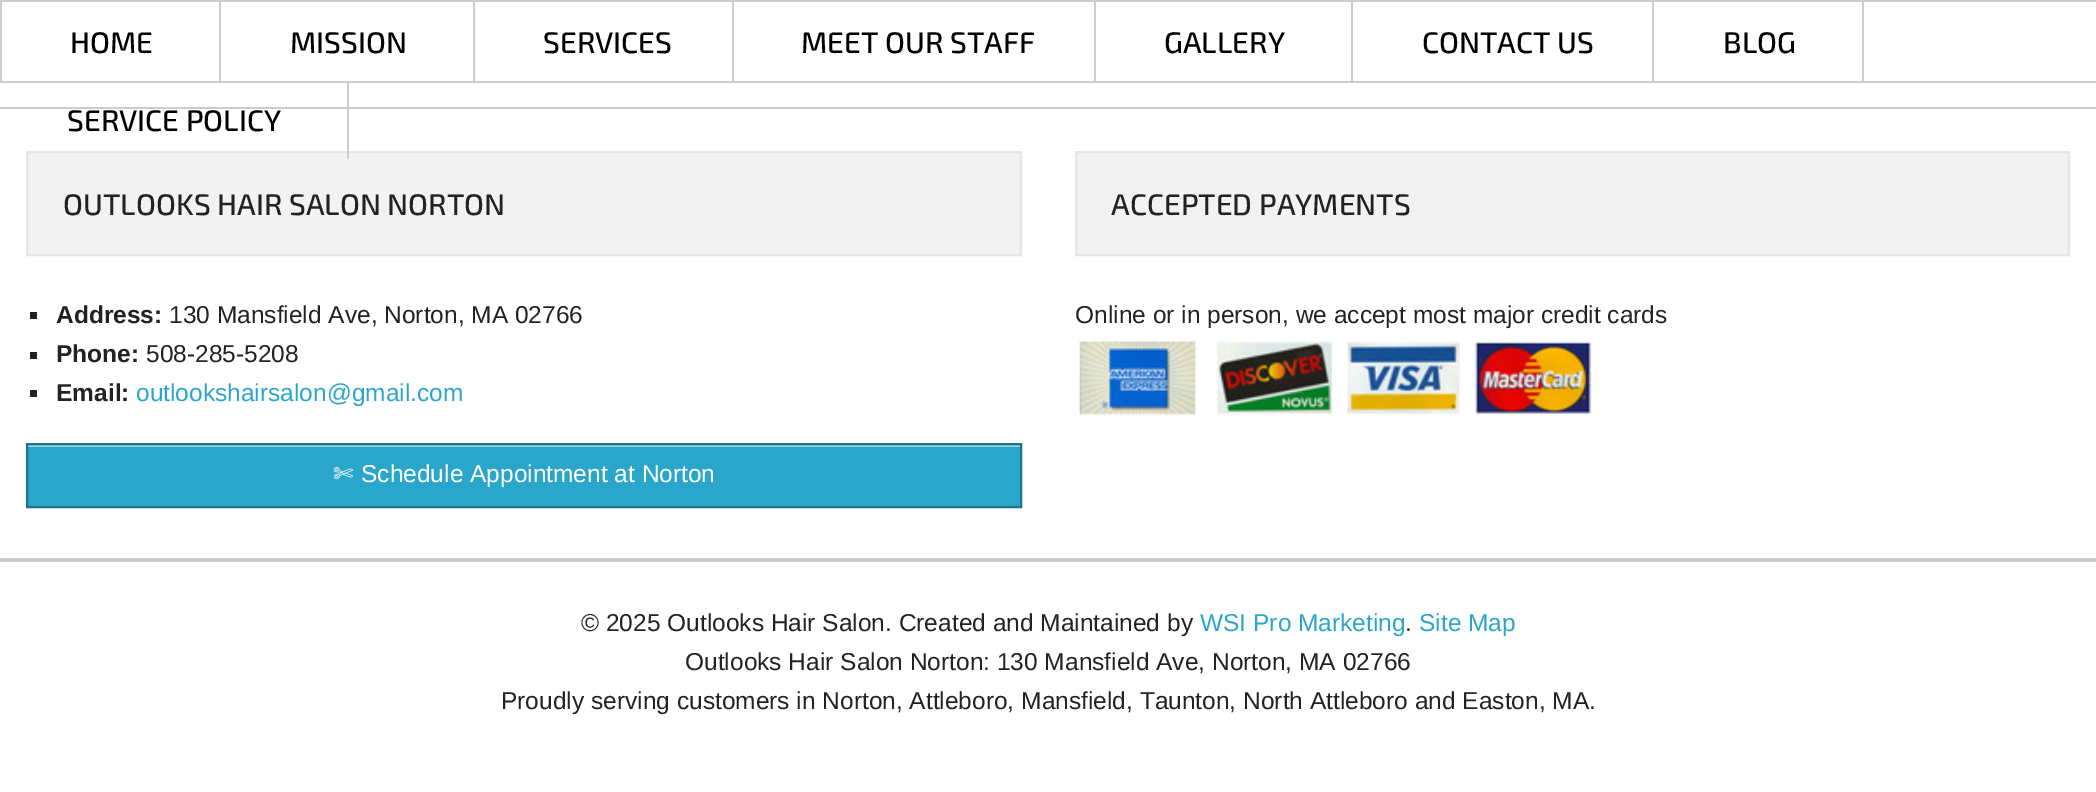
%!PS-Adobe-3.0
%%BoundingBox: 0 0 2096 792
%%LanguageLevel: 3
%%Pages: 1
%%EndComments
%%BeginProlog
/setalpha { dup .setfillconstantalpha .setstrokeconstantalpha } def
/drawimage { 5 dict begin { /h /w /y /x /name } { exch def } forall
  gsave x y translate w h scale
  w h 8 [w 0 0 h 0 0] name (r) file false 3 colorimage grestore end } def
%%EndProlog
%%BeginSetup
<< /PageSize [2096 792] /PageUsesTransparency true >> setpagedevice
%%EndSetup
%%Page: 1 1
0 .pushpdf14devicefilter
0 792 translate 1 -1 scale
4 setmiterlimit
1 setgray
0 0 2096 792 rectfill
0.8 setgray
0 0 2096 2 rectfill
0 81 2096 2 rectfill
0 2 2 79 rectfill
219 2 2 79 rectfill
473 2 2 79 rectfill
732 2 2 79 rectfill
1094 2 2 79 rectfill
1351 2 2 79 rectfill
1652 2 2 79 rectfill
1862 2 2 79 rectfill
0 107 2096 2 rectfill
0.1 setalpha
1 setgray
349 81 1 28 rectfill
1 setalpha
0.949 setgray
newpath 27 152 moveto 1021 152 lineto 1021 255 lineto 27 255 lineto closepath gsave fill grestore
0.902 setgray
2 setlinewidth
stroke
0.8 setgray
347 81 2 78 rectfill
0 558 2096 4 rectfill
0.133 setgray
30 312 7 7 rectfill
30 352 7 7 rectfill
30 390 7 7 rectfill
0.169 0.651 0.796 setrgbcolor
28 447 992 59 rectfill
0.584 0.827 0.898 setrgbcolor
28 445 992 2 rectfill
0.118 0.447 0.549 setrgbcolor
27 444 994 63 rectstroke
0.949 setgray
newpath 1076 152 moveto 2069 152 lineto 2069 255 lineto 1076 255 lineto closepath gsave fill grestore
0.902 setgray
stroke
(images/1.raw) 1079 341 513 75 drawimage
/Exo2-Medium [29.75 0 0 -29.75 0 0] selectfont
0 setgray
70 53 moveto (HOME) show
290 53 moveto (MISSION) show
543 53 moveto (SERVICES) show
801 53 moveto (MEET OUR STAFF) show
1164 53 moveto (GALLERY) show
1422 53 moveto (CONTACT US) show
1723 53 moveto (BLOG) show
67 131 moveto (SERVICE POLICY) show
0.133 setgray
63 215 moveto (OUTLOOKS HAIR SALON NORTON) show
/LiberationSans-Bold [24.5 0 0 -24.5 0 0] selectfont
56 323 moveto (Address:) show
/LiberationSans-Regular [24.5 0 0 -24.5 0 0] selectfont
169 323 moveto (130 Mansfield Ave, Norton, MA 02766) show
/LiberationSans-Bold [24.5 0 0 -24.5 0 0] selectfont
56 362 moveto (Phone:) show
/LiberationSans-Regular [24.5 0 0 -24.5 0 0] selectfont
146 362 moveto (508-285-5208) show
/LiberationSans-Bold [24.5 0 0 -24.5 0 0] selectfont
56 401 moveto (Email:) show
/LiberationSans-Regular [24.5 0 0 -24.5 0 0] selectfont
0.169 0.651 0.796 setrgbcolor
136 401 moveto (outlookshairsalon@gmail.com) show
/DejaVuSans-Regular [24.5 0 0 -24.5 0 0] selectfont
1 setgray
333 482 moveto (✄) show
/LiberationSans-Regular [24.5 0 0 -24.5 0 0] selectfont
361 482 moveto (Schedule Appointment at Norton) show
/Exo2-Medium [29.75 0 0 -29.75 0 0] selectfont
0.133 setgray
1111 215 moveto (ACCEPTED PAYMENTS) show
/LiberationSans-Regular [24.5 0 0 -24.5 0 0] selectfont
1075 323 moveto (Online or in person, we accept most major credit cards) show
581 631 moveto (© 2025 Outlooks Hair Salon. Created and Maintained by) show
0.169 0.651 0.796 setrgbcolor
1200 631 moveto (WSI Pro Marketing) show
0.133 setgray
1405 631 moveto (.) show
0.169 0.651 0.796 setrgbcolor
1419 631 moveto (Site Map) show
0.133 setgray
685 670 moveto (Outlooks Hair Salon Norton: 130 Mansfield Ave, Norton, MA 02766) show
501 709 moveto (Proudly serving customers in Norton, Attleboro, Mansfield, Taunton, North Attleboro and Easton, MA.) show
.poppdf14devicefilter showpage
%%EOF
